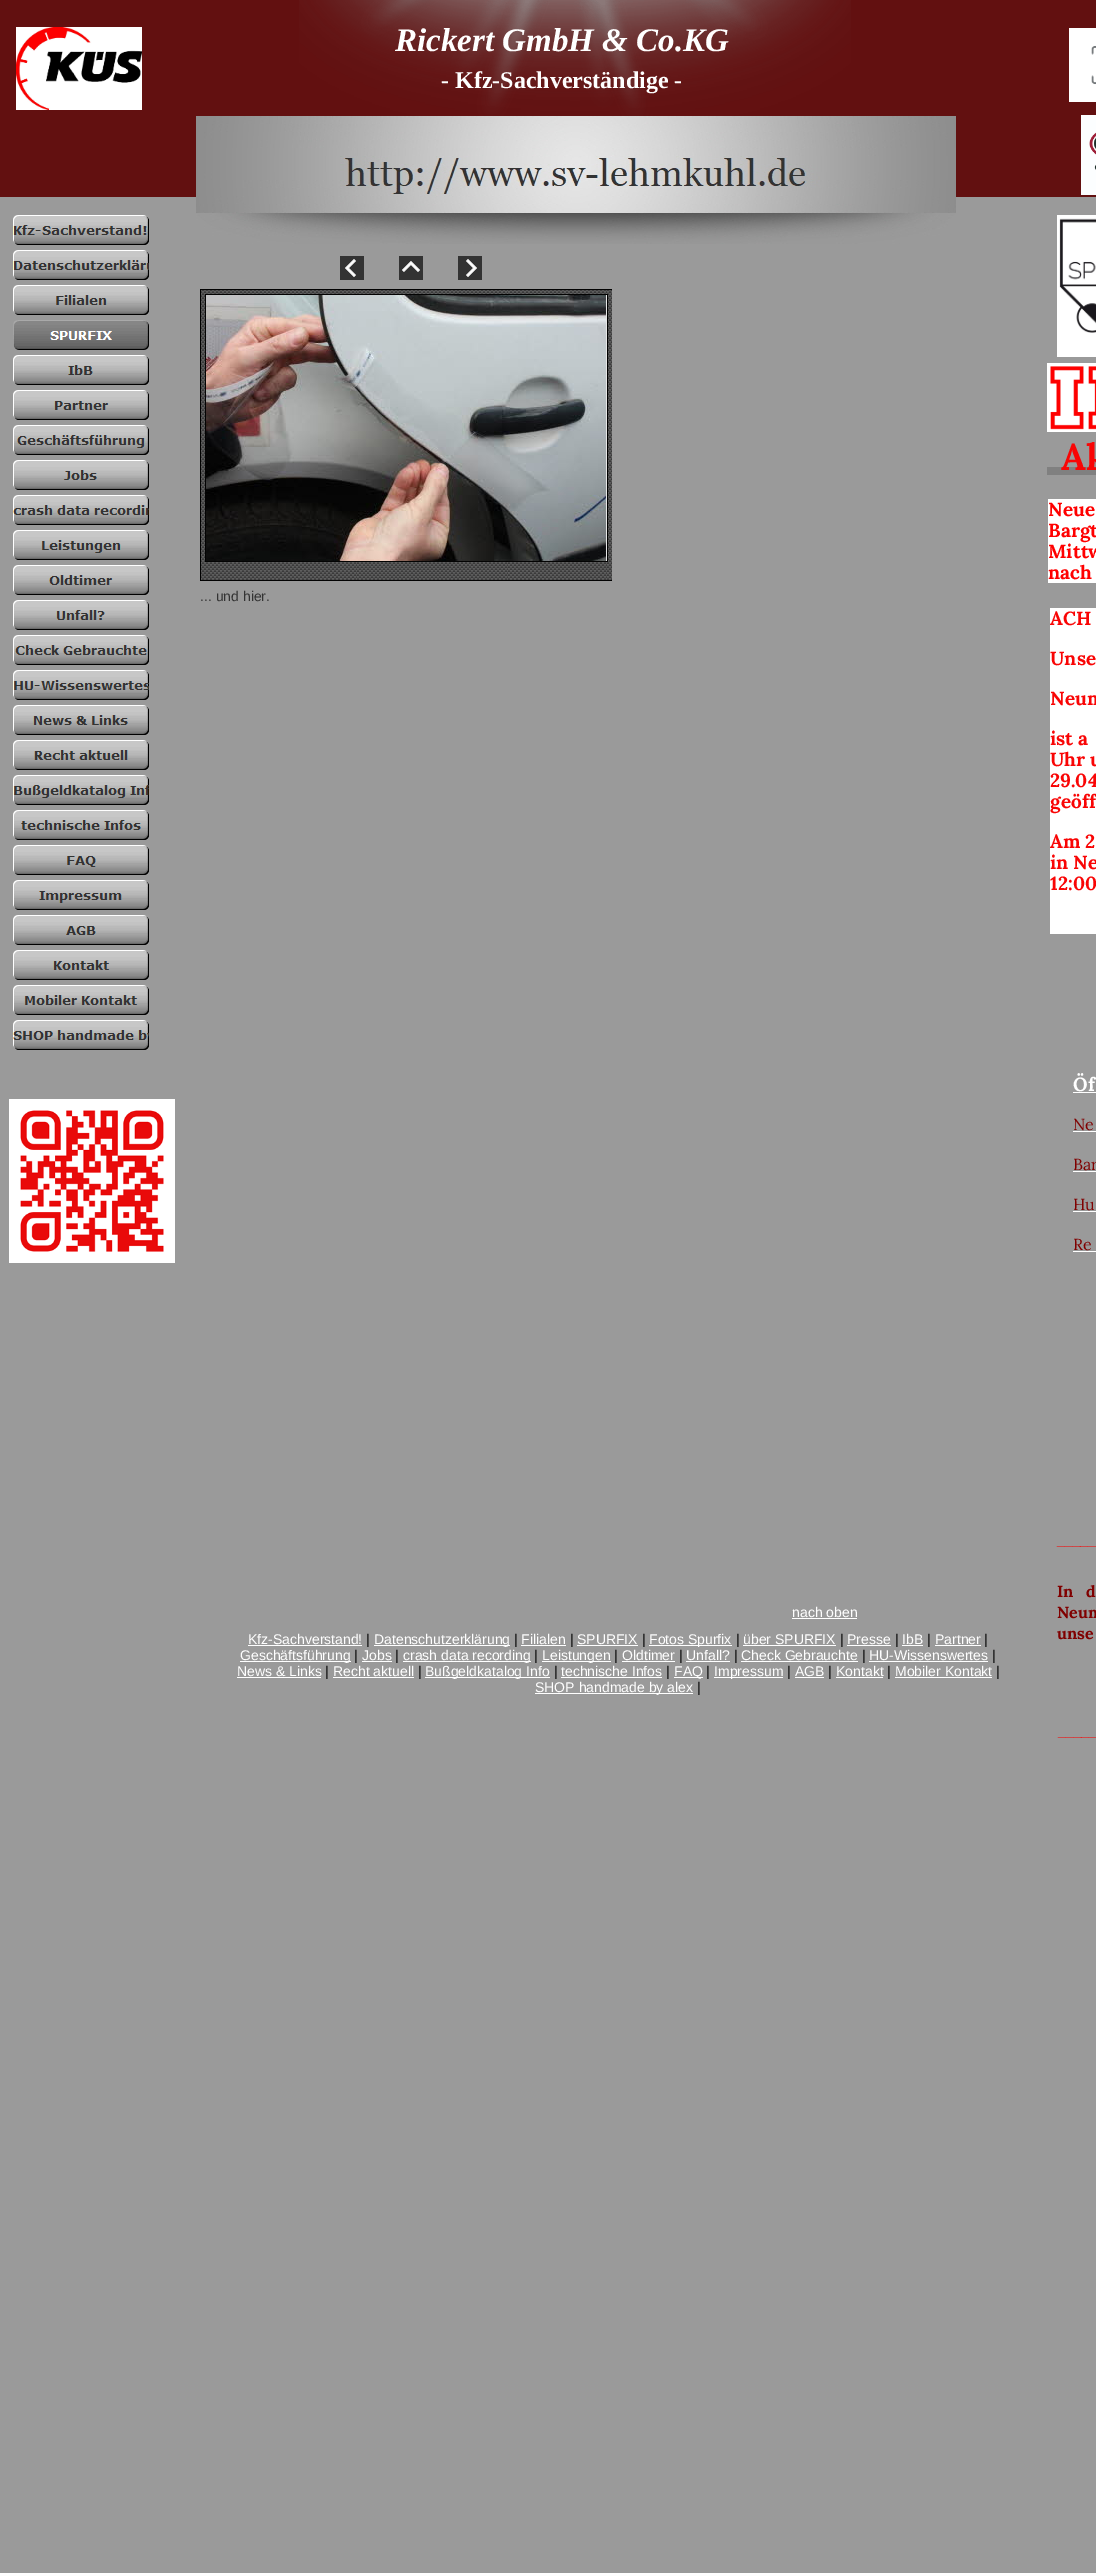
%!PS-Adobe-3.0
%%BoundingBox: 0 0 1096 2573
%%LanguageLevel: 3
%%Pages: 1
%%EndComments
%%BeginProlog
/drawimage { 5 dict begin { /h /w /y /x /name } { exch def } forall
  gsave x y translate w h scale
  w h 8 [w 0 0 h 0 0] name (r) file false 3 colorimage grestore end } def
%%EndProlog
%%BeginSetup
<< /PageSize [1096 2573] >> setpagedevice
%%EndSetup
%%Page: 1 1
0 2573 translate 1 -1 scale
4 setmiterlimit
0.604 setgray
0 0 1096 2573 rectfill
0.384 0.063 0.063 setrgbcolor
0 0 1096 197 rectfill
(images/1.raw) 16 27 126 83 drawimage
(images/2.raw) 13 215 136 30 drawimage
(images/3.raw) 13 250 136 30 drawimage
(images/4.raw) 13 285 136 30 drawimage
(images/5.raw) 13 320 136 30 drawimage
(images/6.raw) 13 355 136 30 drawimage
(images/7.raw) 13 390 136 30 drawimage
(images/8.raw) 13 425 136 30 drawimage
(images/9.raw) 13 460 136 30 drawimage
(images/10.raw) 13 495 136 30 drawimage
(images/11.raw) 13 530 136 30 drawimage
(images/12.raw) 13 565 136 30 drawimage
(images/13.raw) 13 600 136 30 drawimage
(images/14.raw) 13 635 136 30 drawimage
(images/15.raw) 13 670 136 30 drawimage
(images/16.raw) 13 705 136 30 drawimage
(images/17.raw) 13 740 136 30 drawimage
(images/18.raw) 13 775 136 30 drawimage
(images/19.raw) 13 810 136 30 drawimage
(images/20.raw) 13 845 136 30 drawimage
(images/21.raw) 13 880 136 30 drawimage
(images/22.raw) 13 915 136 30 drawimage
(images/23.raw) 13 950 136 30 drawimage
(images/24.raw) 13 985 136 30 drawimage
(images/25.raw) 13 1020 136 30 drawimage
(images/26.raw) 9 1099 166 164 drawimage
(images/27.raw) 299 0 552 116 drawimage
(images/28.raw) 196 116 760 128 drawimage
(images/29.raw) 340 256 24 24 drawimage
(images/30.raw) 399 256 24 24 drawimage
(images/31.raw) 458 256 24 24 drawimage
(images/32.raw) 200 289 6 6 drawimage
(images/33.raw) 206 289 400 6 drawimage
(images/34.raw) 606 289 6 6 drawimage
(images/35.raw) 200 295 6 266 drawimage
(images/36.raw) 206 295 400 266 drawimage
(images/37.raw) 606 295 6 266 drawimage
(images/38.raw) 200 561 6 20 drawimage
(images/39.raw) 206 561 400 20 drawimage
(images/40.raw) 606 561 6 20 drawimage
1 setgray
792 1618 65 1 rectfill
248 1645 114 1 rectfill
374 1645 136 1 rectfill
521 1645 45 1 rectfill
577 1645 61 1 rectfill
649 1645 83 1 rectfill
743 1645 93 1 rectfill
847 1645 44 1 rectfill
902 1645 21 1 rectfill
935 1645 46 1 rectfill
240 1661 111 1 rectfill
362 1661 30 1 rectfill
403 1661 128 1 rectfill
542 1661 69 1 rectfill
622 1661 53 1 rectfill
686 1661 44 1 rectfill
741 1661 117 1 rectfill
869 1661 119 1 rectfill
237 1677 84 1 rectfill
333 1677 81 1 rectfill
425 1677 125 1 rectfill
561 1677 101 1 rectfill
674 1677 29 1 rectfill
714 1677 69 1 rectfill
795 1677 29 1 rectfill
836 1677 47 1 rectfill
895 1677 97 1 rectfill
535 1693 158 1 rectfill
(images/41.raw) 1069 28 27 74 drawimage
(images/42.raw) 1081 115 15 80 drawimage
(images/43.raw) 1057 215 39 142 drawimage
(images/44.raw) 1047 363 49 69 drawimage
0.502 setgray
1047 467 49 8 rectfill
1 setgray
1048 499 48 84 rectfill
1050 608 46 326 rectfill
1073 1092 23 1 rectfill
1073 1131 23 1 rectfill
1073 1171 23 1 rectfill
1073 1211 23 1 rectfill
1073 1251 23 1 rectfill
/LiberationSerif-BoldItalic [33 0 0 -33 0 0] selectfont
395 51 moveto (Rickert GmbH & Co.KG) show
/LiberationSerif-Bold [24 0 0 -24 0 0] selectfont
441 88 moveto (- Kfz-Sachverständige -) show
/LiberationSans-Regular [14 0 0 -14 0 0] selectfont
0.2 setgray
200 601 moveto (... und hier.) show
1 setgray
792 1617 moveto (nach oben) show
248 1644 moveto (Kfz-Sachverstand!) show
0.063 setgray
366 1644 moveto (|) show
1 setgray
374 1644 moveto (Datenschutzerklärung) show
0.063 setgray
514 1644 moveto (|) show
1 setgray
521 1644 moveto (Filialen) show
0.063 setgray
570 1644 moveto (|) show
1 setgray
577 1644 moveto (SPURFIX) show
0.063 setgray
642 1644 moveto (|) show
1 setgray
649 1644 moveto (Fotos Spurfix) show
0.063 setgray
736 1644 moveto (|) show
1 setgray
743 1644 moveto (über SPURFIX) show
0.063 setgray
840 1644 moveto (|) show
1 setgray
847 1644 moveto (Presse) show
0.063 setgray
895 1644 moveto (|) show
1 setgray
902 1644 moveto (IbB) show
0.063 setgray
927 1644 moveto (|) show
1 setgray
935 1644 moveto (Partner) show
0.063 setgray
984 1644 moveto (|) show
1 setgray
240 1660 moveto (Geschäftsführung) show
0.063 setgray
354 1660 moveto (|) show
1 setgray
362 1660 moveto (Jobs) show
0.063 setgray
395 1660 moveto (|) show
1 setgray
403 1660 moveto (crash data recording) show
0.063 setgray
534 1660 moveto (|) show
1 setgray
542 1660 moveto (Leistungen) show
0.063 setgray
614 1660 moveto (|) show
1 setgray
622 1660 moveto (Oldtimer) show
0.063 setgray
679 1660 moveto (|) show
1 setgray
686 1660 moveto (Unfall?) show
0.063 setgray
734 1660 moveto (|) show
1 setgray
741 1660 moveto (Check Gebrauchte) show
0.063 setgray
862 1660 moveto (|) show
1 setgray
869 1660 moveto (HU-Wissenswertes) show
0.063 setgray
992 1660 moveto (|) show
1 setgray
237 1676 moveto (News & Links) show
0.063 setgray
325 1676 moveto (|) show
1 setgray
333 1676 moveto (Recht aktuell) show
0.063 setgray
418 1676 moveto (|) show
1 setgray
425 1676 moveto (Bußgeldkatalog Info) show
0.063 setgray
554 1676 moveto (|) show
1 setgray
561 1676 moveto (technische Infos) show
0.063 setgray
666 1676 moveto (|) show
1 setgray
674 1676 moveto (FAQ) show
0.063 setgray
706 1676 moveto (|) show
1 setgray
714 1676 moveto (Impressum) show
0.063 setgray
787 1676 moveto (|) show
1 setgray
795 1676 moveto (AGB) show
0.063 setgray
828 1676 moveto (|) show
1 setgray
836 1676 moveto (Kontakt) show
0.063 setgray
887 1676 moveto (|) show
1 setgray
895 1676 moveto (Mobiler Kontakt) show
0.063 setgray
996 1676 moveto (|) show
1 setgray
535 1692 moveto (SHOP handmade by alex) show
0.063 setgray
697 1692 moveto (|) show
/Lora-Bold [37 0 0 -37 0 0] selectfont
0.976 0.02 0.02 setrgbcolor
1061 470 moveto (Ak) show
/Lora-Bold [19 0 0 -19 0 0] selectfont
1 0 0 setrgbcolor
1048 516 moveto (Neue) show
1048 537 moveto (Bargt) show
1048 558 moveto (Mittw) show
1048 579 moveto (nach) show
0.976 0.02 0.02 setrgbcolor
1050 625 moveto (ACH) show
1050 665 moveto (Unse) show
1050 705 moveto (Neum) show
1050 745 moveto (ist a) show
1050 766 moveto (Uhr u) show
1050 787 moveto (29.04) show
1050 808 moveto (geöff) show
1050 848 moveto (Am 2) show
1050 869 moveto (in Ne) show
1050 890 moveto (12:00) show
1 setgray
1073 1091 moveto (Öf) show
/Lora-Regular [16 0 0 -16 0 0] selectfont
0.502 0 0 setrgbcolor
1073 1130 moveto (Ne) show
1073 1170 moveto (Bar) show
1073 1210 moveto (Hu) show
1073 1250 moveto (Re) show
/LiberationSans-Bold [14 0 0 -14 0 0] selectfont
0.976 0.02 0.02 setrgbcolor
1057 1545 moveto (_____) show
/Lora-Bold [16 0 0 -16 0 0] selectfont
0.502 0 0 setrgbcolor
1057 1597 moveto 8 0 32 (In d) widthshow
1057 1618 moveto 17 0 32 (Neum) widthshow
1057 1639 moveto (unse) show
/LiberationSans-Bold [14 0 0 -14 0 0] selectfont
0.976 0.02 0.02 setrgbcolor
1058 1736 moveto (_____) show
showpage
%%EOF
